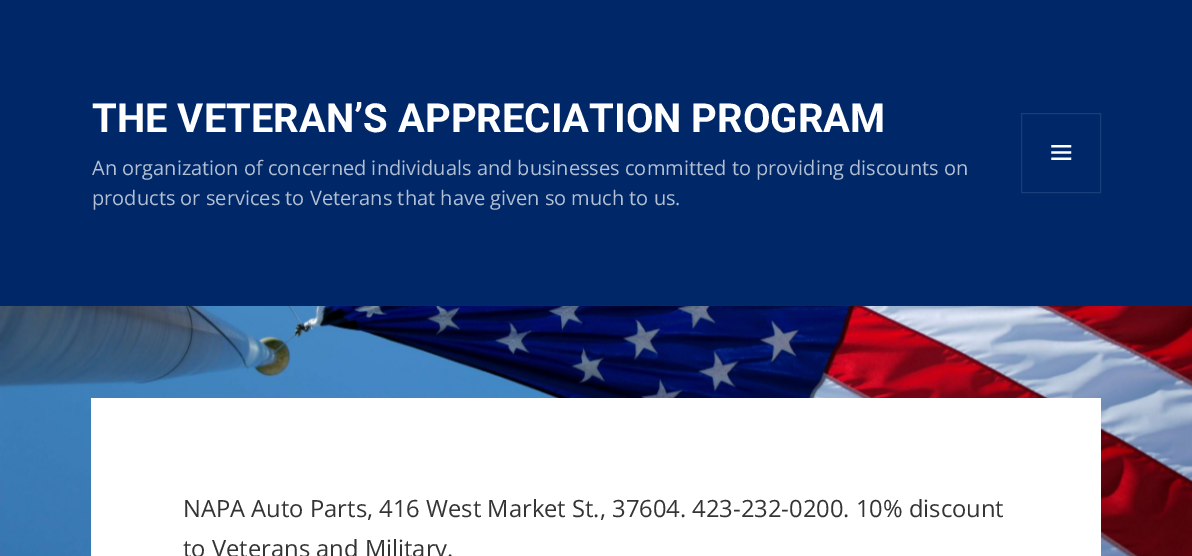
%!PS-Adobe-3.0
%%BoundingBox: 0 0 1192 556
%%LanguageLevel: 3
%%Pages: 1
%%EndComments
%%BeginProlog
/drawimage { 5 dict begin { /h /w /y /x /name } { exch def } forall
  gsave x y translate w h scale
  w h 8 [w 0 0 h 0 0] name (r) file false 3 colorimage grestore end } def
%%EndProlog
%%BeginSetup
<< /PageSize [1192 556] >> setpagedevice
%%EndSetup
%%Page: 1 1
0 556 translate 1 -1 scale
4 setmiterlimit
1 setgray
0 0 1192 556 rectfill
(images/1.raw) 0 306 1192 250 drawimage
0 0.157 0.408 setrgbcolor
0 0 1192 305 rectfill
0.012 0.161 0.392 setrgbcolor
0 305 1192 1 rectfill
0.102 0.243 0.467 setrgbcolor
1021.5 113.5 79 79 rectstroke
(images/2.raw) 1051 145 21 15 drawimage
1 setgray
91 398 1010 158 rectfill
/Roboto-Bold [40 0 0 -40 0 0] selectfont
92 132 moveto (THE VETERAN’S APPRECIATION PROGRAM) show
/OpenSans-Regular [20 0 0 -20 0 0] selectfont
0.702 0.749 0.824 setrgbcolor
92 175 moveto (An organization of concerned individuals and businesses committed to providing discounts on) show
92 205 moveto (products or services to Veterans that have given so much to us.) show
/OpenSans-Regular [23.75 0 0 -23.75 0 0] selectfont
0.204 setgray
183 517 moveto (NAPA Auto Parts, 416 West Market St., 37604. 423-232-0200. 10% discount) show
183 557 moveto (to Veterans and Military.) show
showpage
%%EOF
